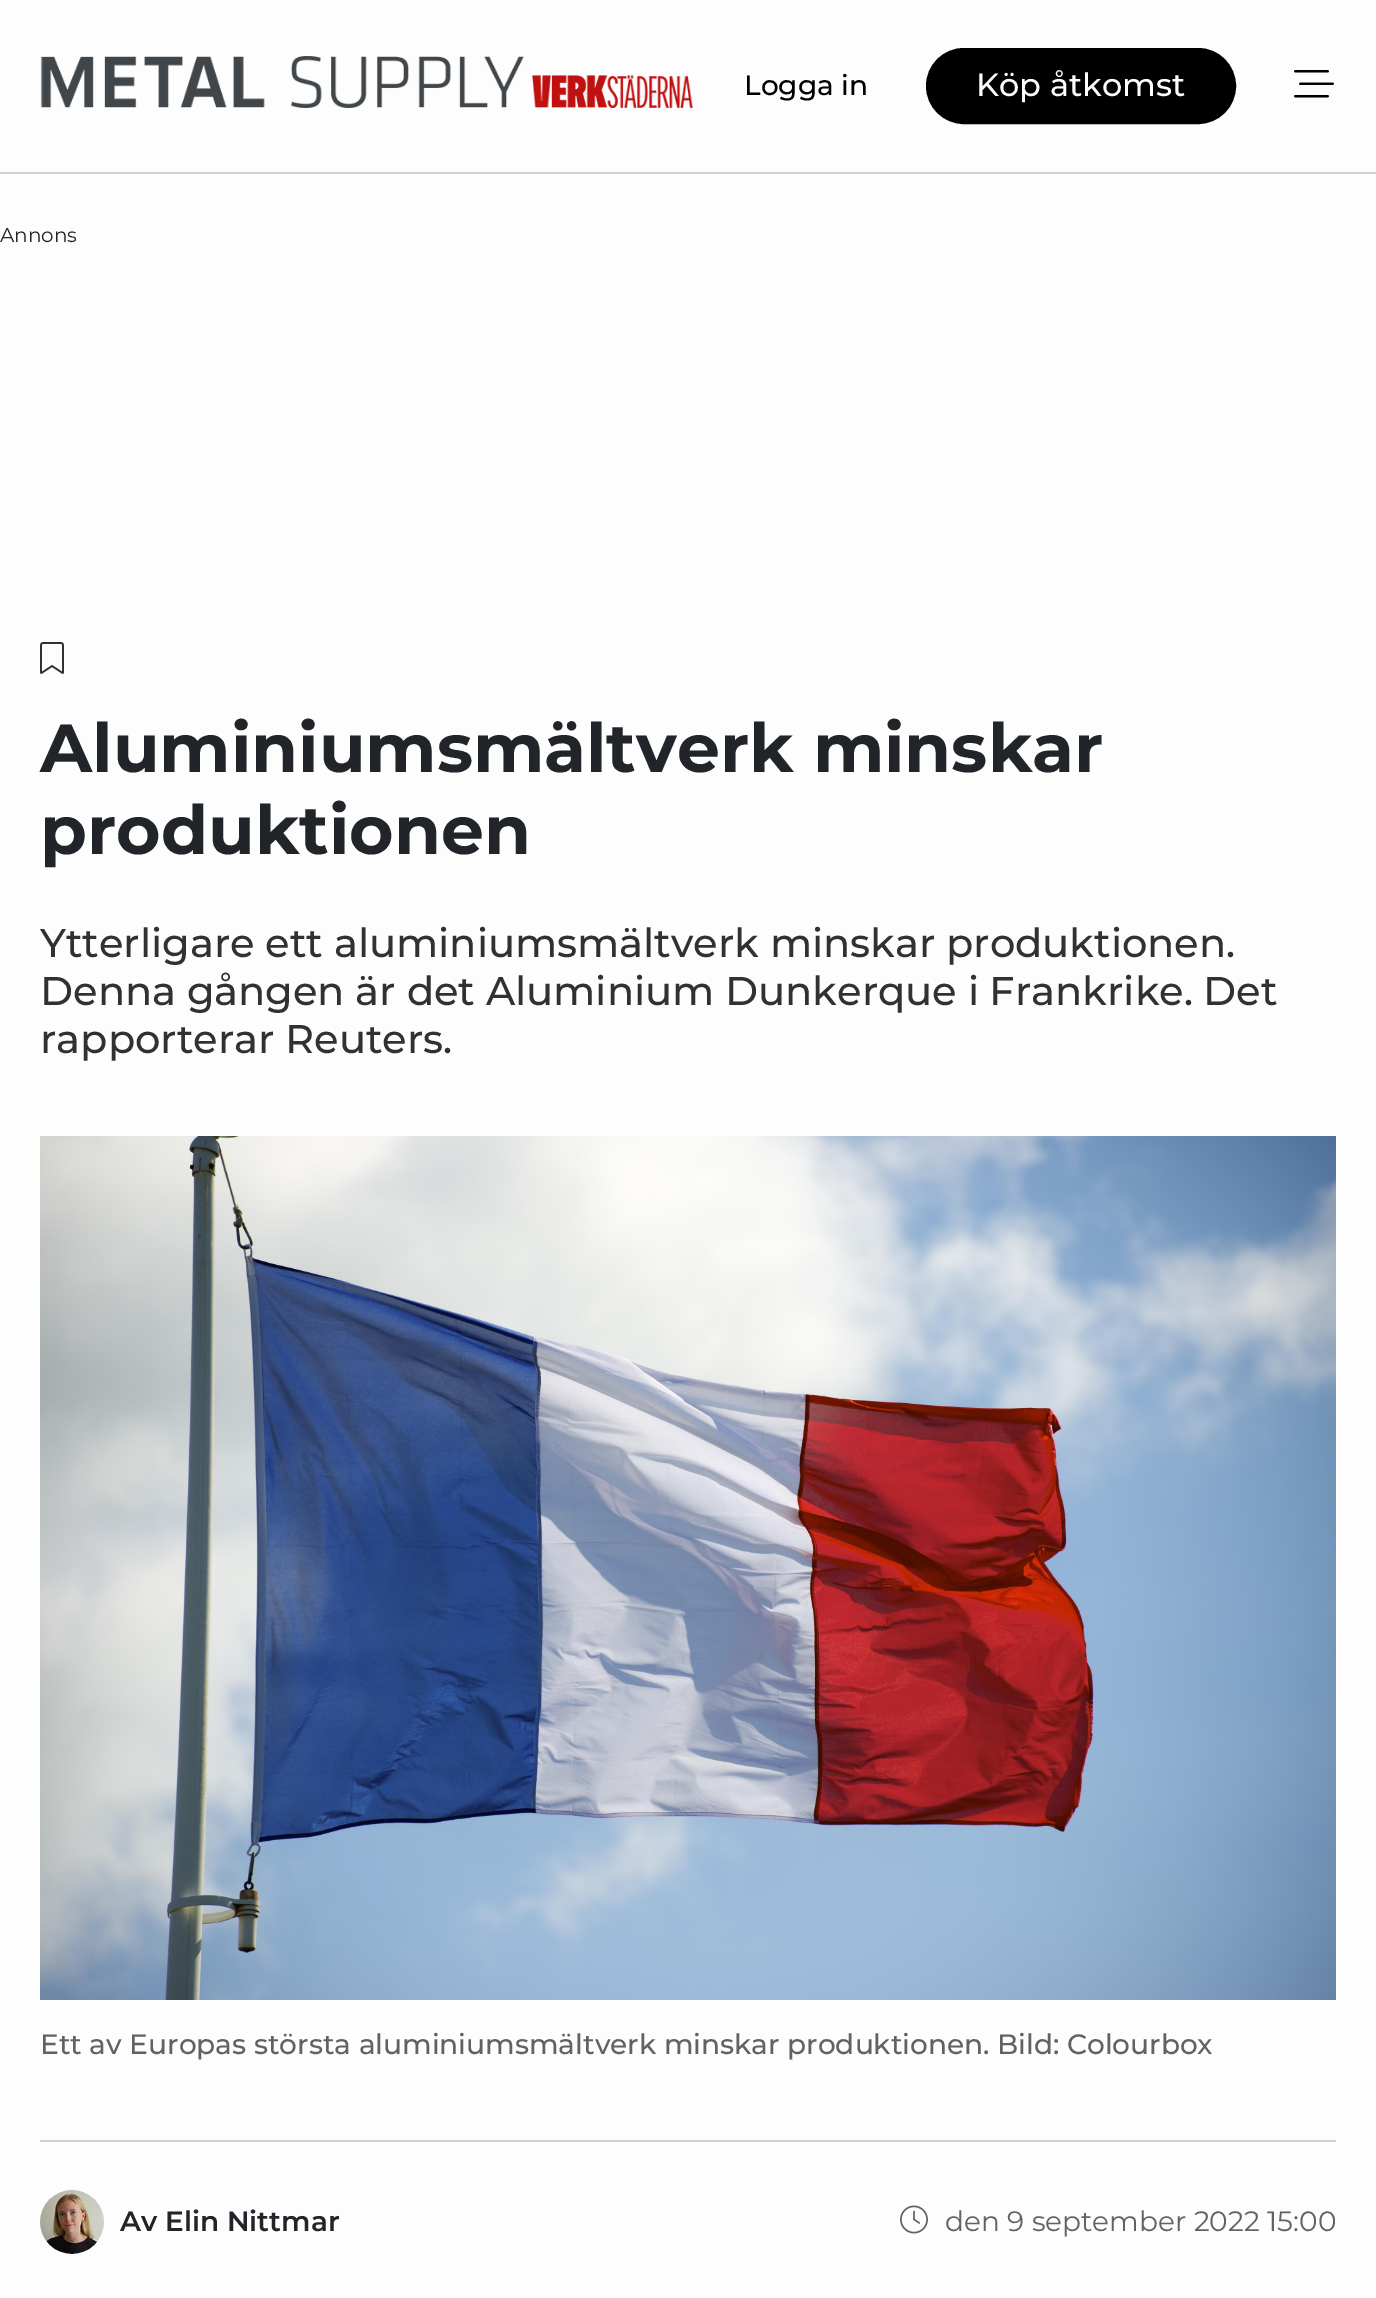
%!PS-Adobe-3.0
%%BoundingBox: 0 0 1376 2298
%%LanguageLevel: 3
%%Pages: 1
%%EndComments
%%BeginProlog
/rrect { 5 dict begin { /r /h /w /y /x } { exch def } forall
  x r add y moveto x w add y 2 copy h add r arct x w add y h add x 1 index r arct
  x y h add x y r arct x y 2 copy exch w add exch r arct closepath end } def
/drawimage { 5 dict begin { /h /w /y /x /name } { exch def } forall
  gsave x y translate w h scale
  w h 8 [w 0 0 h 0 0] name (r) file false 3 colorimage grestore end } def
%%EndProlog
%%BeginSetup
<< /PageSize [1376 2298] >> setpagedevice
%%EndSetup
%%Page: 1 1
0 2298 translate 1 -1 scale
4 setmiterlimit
0.992 setgray
0 0 1376 2298 rectfill
0.82 setgray
0 172 1376 2 rectfill
(images/1.raw) 40 56 654 52 drawimage
0 setgray
927 49 308 74 37 rrect gsave fill grestore
2 setlinewidth
stroke
(images/2.raw) 1294 70 40 28 drawimage
(images/3.raw) 40 642 24 32 drawimage
(images/4.raw) 40 1136 1296 864 drawimage
0.82 setgray
40 2140 1296 2 rectfill
(images/5.raw) 40 2190 64 64 drawimage
(images/6.raw) 900 2205 28 29 drawimage
/Montserrat-Medium [28 0 0 -28 0 0] selectfont
0 setgray
744 95 moveto (Logga in) show
/Montserrat-Medium [32 0 0 -32 0 0] selectfont
0.992 setgray
976 96 moveto (Köp åtkomst) show
/Montserrat-Regular [20 0 0 -20 0 0] selectfont
0.129 0.145 0.161 setrgbcolor
0 242 moveto (Annons) show
/Montserrat-Bold [68 0 0 -68 0 0] selectfont
40 772 moveto (Aluminiumsmältverk minskar) show
40 854 moveto (produktionen) show
/Montserrat-Medium [40 0 0 -40 0 0] selectfont
0.192 setgray
40 957 moveto (Ytterligare ett aluminiumsmältverk minskar produktionen.) show
40 1005 moveto (Denna gången är det Aluminium Dunkerque i Frankrike. Det) show
40 1053 moveto (rapporterar Reuters.) show
/Montserrat-Medium [28 0 0 -28 0 0] selectfont
0.388 0.384 0.384 setrgbcolor
40 2054 moveto (Ett av Europas största aluminiumsmältverk minskar produktionen. Bild: Colourbox) show
/Montserrat-SemiBold [28 0 0 -28 0 0] selectfont
0.129 0.145 0.161 setrgbcolor
120 2231 moveto (Av Elin Nittmar) show
/Montserrat-Regular [28 0 0 -28 0 0] selectfont
0.388 0.384 0.384 setrgbcolor
945 2231 moveto (den 9 september 2022 15:00) show
showpage
%%EOF
